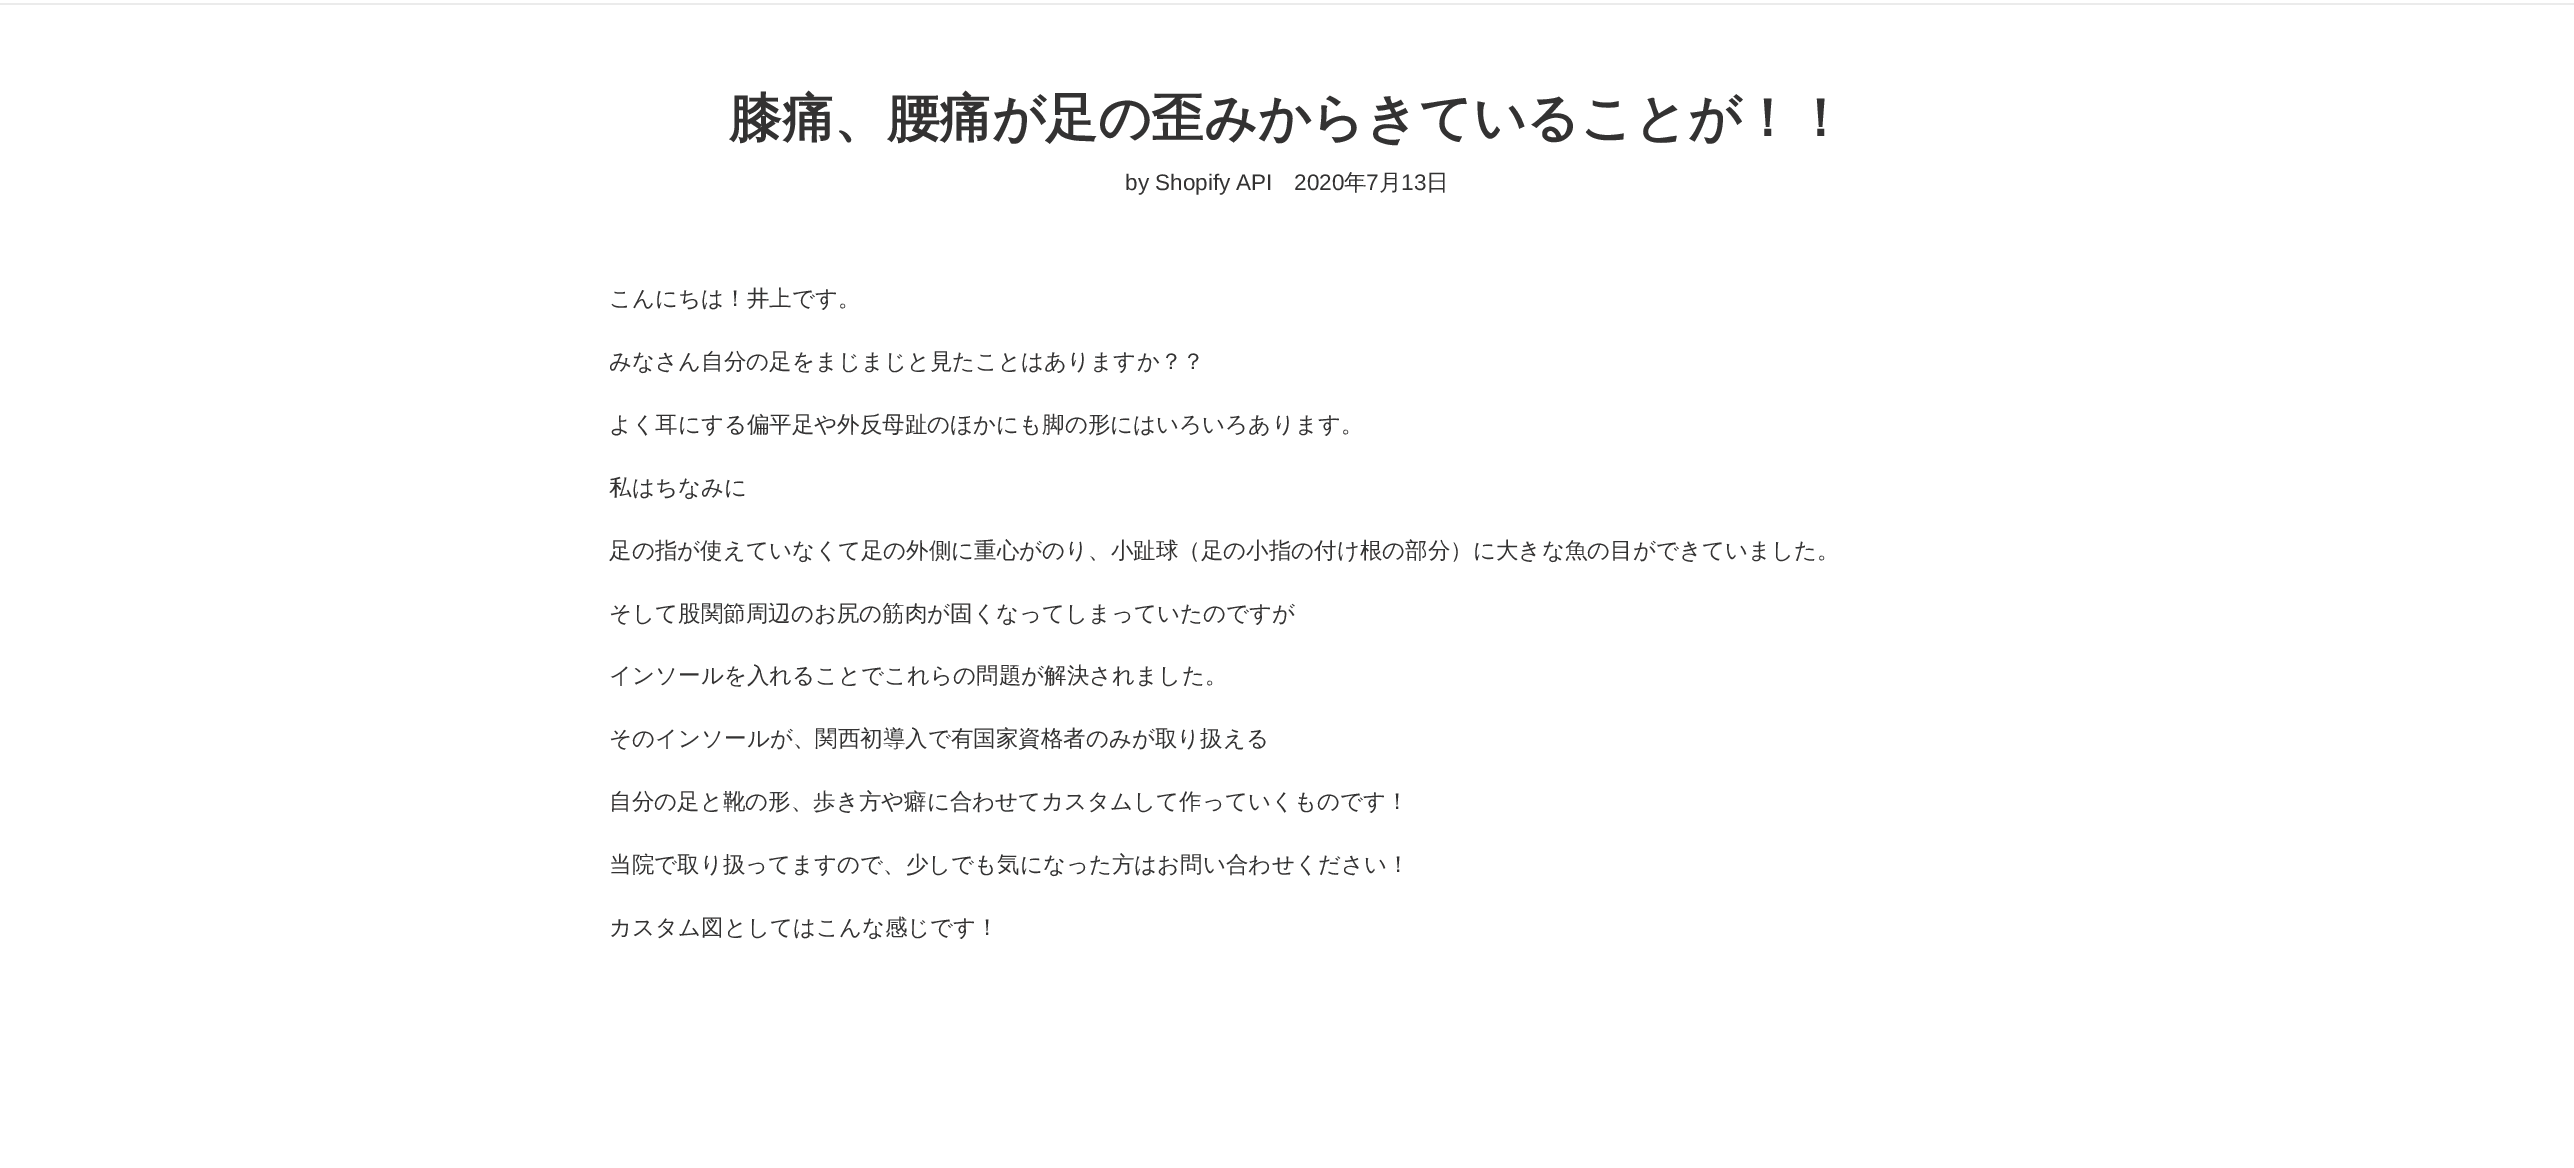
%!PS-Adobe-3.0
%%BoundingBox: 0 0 2574 1168
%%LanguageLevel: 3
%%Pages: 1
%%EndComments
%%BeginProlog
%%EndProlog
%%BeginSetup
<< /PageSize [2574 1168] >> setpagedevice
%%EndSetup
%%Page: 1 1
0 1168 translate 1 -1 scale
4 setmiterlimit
1 setgray
0 0 2574 1168 rectfill
0.922 setgray
0 3 2574 2 rectfill
/WenQuanYiZenHei-Bold [52.5 0 0 -52.5 0 0] selectfont
0.2 0.196 0.196 setrgbcolor
729 136 moveto (膝痛、腰痛が足の歪みからきていることが！！) show
/LiberationSans-Regular [22.5 0 0 -22.5 0 0] selectfont
1125 190 moveto (by Shopify API) show
1294 190 moveto (2020) show
/WenQuanYiZenHei-Medium [22.5 0 0 -22.5 0 0] selectfont
1344 190 moveto (年) show
/LiberationSans-Regular [22.5 0 0 -22.5 0 0] selectfont
1366 190 moveto (7) show
/WenQuanYiZenHei-Medium [22.5 0 0 -22.5 0 0] selectfont
1379 190 moveto (月) show
/LiberationSans-Regular [22.5 0 0 -22.5 0 0] selectfont
1401 190 moveto (13) show
/WenQuanYiZenHei-Medium [22.5 0 0 -22.5 0 0] selectfont
1426 190 moveto (日) show
609 306 moveto (こんにちは！井上です。) show
609 369 moveto (みなさん自分の足をまじまじと見たことはありますか？？) show
609 432 moveto (よく耳にする偏平足や外反母趾のほかにも脚の形にはいろいろあります。) show
609 495 moveto (私はちなみに) show
609 558 moveto (足の指が使えていなくて足の外側に重心がのり、小趾球（足の小指の付け根の部分）に大きな魚の目ができていました。) show
609 621 moveto (そして股関節周辺のお尻の筋肉が固くなってしまっていたのですが) show
609 683 moveto (インソールを入れることでこれらの問題が解決されました。) show
609 746 moveto (そのインソールが、関西初導入で有国家資格者のみが取り扱える) show
609 809 moveto (自分の足と靴の形、歩き方や癖に合わせてカスタムして作っていくものです！) show
609 872 moveto (当院で取り扱ってますので、少しでも気になった方はお問い合わせください！) show
609 935 moveto (カスタム図としてはこんな感じです！) show
showpage
%%EOF
